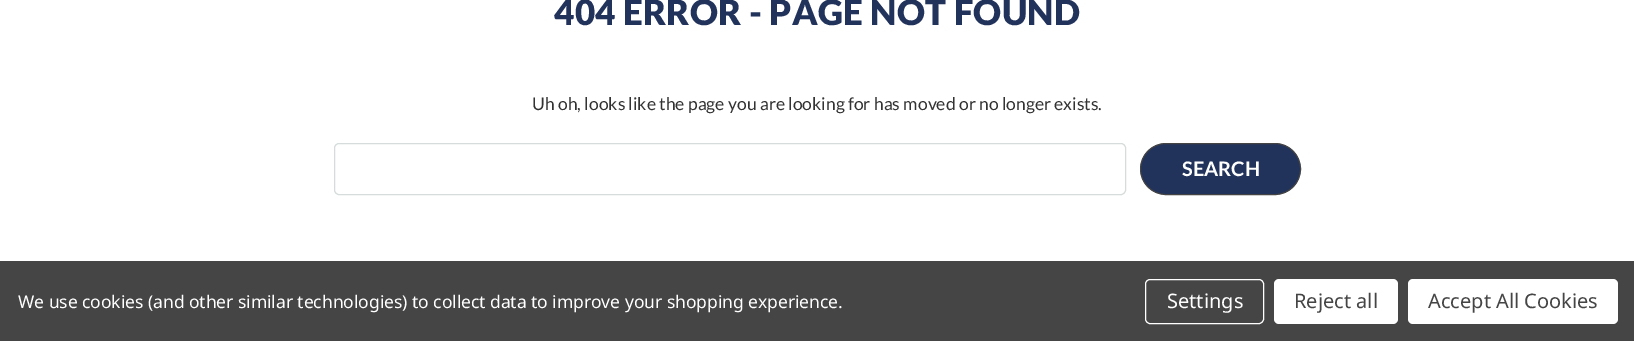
%!PS-Adobe-3.0
%%BoundingBox: 0 0 1634 341
%%LanguageLevel: 3
%%Pages: 1
%%EndComments
%%BeginProlog
/rrect { 5 dict begin { /r /h /w /y /x } { exch def } forall
  x r add y moveto x w add y 2 copy h add r arct x w add y h add x 1 index r arct
  x y h add x y r arct x y 2 copy exch w add exch r arct closepath end } def
%%EndProlog
%%BeginSetup
<< /PageSize [1634 341] >> setpagedevice
%%EndSetup
%%Page: 1 1
0 341 translate 1 -1 scale
4 setmiterlimit
1 setgray
0 0 1634 341 rectfill
0.839 0.859 0.859 setrgbcolor
334.5 143.5 791 51 4.5 rrect stroke
0.129 0.196 0.357 setrgbcolor
1140.5 143.5 160 51 25.5 rrect gsave fill grestore
0.267 setgray
stroke
0.271 setgray
0 261 1634 80 rectfill
1 setgray
1145.5 279.5 118 44 4.5 rrect stroke
1274 279 124 45 5 rrect fill
1408 279 210 45 5 rrect fill
/Lato-Black [35 0 0 -35 0 0] selectfont
0.129 0.196 0.357 setrgbcolor
554 25 moveto 0.3 0 (404 ERROR - PAGE NOT FOUND) ashow
/Lato-Regular [17.5 0 0 -17.5 0 0] selectfont
0.2 setgray
532 110 moveto (Uh oh, looks like the page you are looking for has moved or no longer exists.) show
/Lato-Bold [20 0 0 -20 0 0] selectfont
1 setgray
1182 176 moveto (SEARCH) show
/NotoSans-Regular [17.5 0 0 -17.5 0 0] selectfont
18 308 moveto -0.05 0 (We use cookies \(and other similar technologies\) to collect data to improve your shopping experience.) ashow
/NotoSans-Regular [20 0 0 -20 0 0] selectfont
1167 308 moveto (Settings) show
0.271 setgray
1294 308 moveto (Reject all) show
1428 308 moveto (Accept All Cookies) show
showpage
%%EOF
